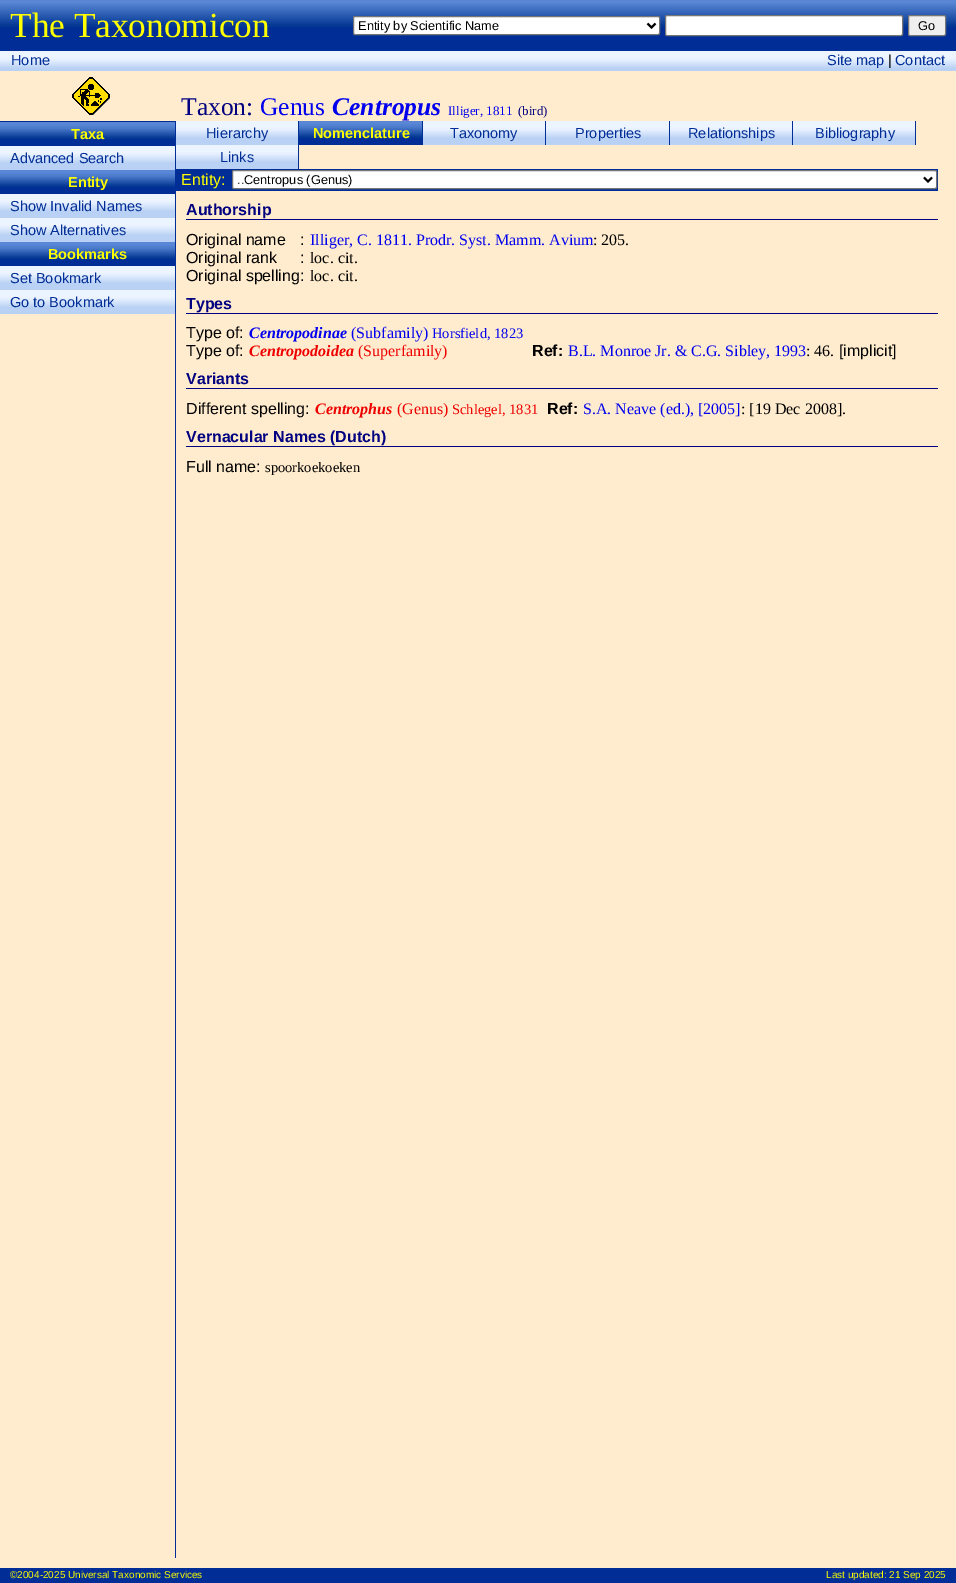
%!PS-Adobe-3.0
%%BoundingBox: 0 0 956 1583
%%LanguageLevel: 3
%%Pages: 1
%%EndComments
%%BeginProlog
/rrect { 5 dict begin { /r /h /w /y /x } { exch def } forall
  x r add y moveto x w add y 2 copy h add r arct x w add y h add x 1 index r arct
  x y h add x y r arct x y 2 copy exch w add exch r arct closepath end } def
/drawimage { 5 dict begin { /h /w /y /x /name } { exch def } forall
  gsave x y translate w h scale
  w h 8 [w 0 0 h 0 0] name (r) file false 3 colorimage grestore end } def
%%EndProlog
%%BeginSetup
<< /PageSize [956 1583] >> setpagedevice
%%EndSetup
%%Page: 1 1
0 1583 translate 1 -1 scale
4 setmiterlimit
1 0.922 0.804 setrgbcolor
0 0 956 1583 rectfill
0 0.176 0.588 setrgbcolor
0 27 956 24 rectfill
(images/1.raw) 0 0 956 27 drawimage
1 setgray
353.5 16.5 306 18 1.5 rrect gsave fill grestore
0.463 setgray
stroke
0 setgray
2 setlinewidth
newpath 647.5 23.5 moveto 651.5 27.5 lineto 655.5 23.5 lineto stroke
1 setgray
665.5 15.5 237 20 1.5 rrect gsave fill grestore
0.463 setgray
1 setlinewidth
stroke
0.937 setgray
908.5 15.5 37 20 1.5 rrect gsave fill grestore
0.463 setgray
stroke
0.725 0.82 0.957 setrgbcolor
0 68 956 3 rectfill
(images/2.raw) 0 51 956 17 drawimage
(images/3.raw) 72 77 38 38 drawimage
0 0.176 0.588 setrgbcolor
0 121 175 1 rectfill
0 139 175 7 rectfill
(images/4.raw) 0 122 175 17 drawimage
0.725 0.82 0.957 setrgbcolor
0 163 175 7 rectfill
(images/5.raw) 0 146 175 17 drawimage
0 0.176 0.588 setrgbcolor
0 187 175 7 rectfill
(images/4.raw) 0 170 175 17 drawimage
0.725 0.82 0.957 setrgbcolor
0 211 175 7 rectfill
(images/5.raw) 0 194 175 17 drawimage
0 235 175 7 rectfill
(images/5.raw) 0 218 175 17 drawimage
0 0.176 0.588 setrgbcolor
0 259 175 7 rectfill
(images/4.raw) 0 242 175 17 drawimage
0.725 0.82 0.957 setrgbcolor
0 283 175 7 rectfill
(images/5.raw) 0 266 175 17 drawimage
0 307 175 7 rectfill
(images/5.raw) 0 290 175 17 drawimage
0 0.176 0.588 setrgbcolor
175 121 1 1437 rectfill
298 121 1 48 rectfill
0.725 0.82 0.957 setrgbcolor
176 138 122 7 rectfill
(images/6.raw) 176 121 122 17 drawimage
0 0.176 0.588 setrgbcolor
422 121 1 24 rectfill
299 138 123 7 rectfill
(images/7.raw) 299 121 123 17 drawimage
545 121 1 24 rectfill
0.725 0.82 0.957 setrgbcolor
423 138 122 7 rectfill
(images/6.raw) 423 121 122 17 drawimage
0 0.176 0.588 setrgbcolor
669 121 1 24 rectfill
0.725 0.82 0.957 setrgbcolor
546 138 123 7 rectfill
(images/8.raw) 546 121 123 17 drawimage
0 0.176 0.588 setrgbcolor
792 121 1 24 rectfill
0.725 0.82 0.957 setrgbcolor
670 138 122 7 rectfill
(images/6.raw) 670 121 122 17 drawimage
0 0.176 0.588 setrgbcolor
915 121 1 24 rectfill
0.725 0.82 0.957 setrgbcolor
793 138 122 7 rectfill
(images/6.raw) 793 121 122 17 drawimage
176 162 122 7 rectfill
(images/6.raw) 176 145 122 17 drawimage
0 0.176 0.588 setrgbcolor
176 169 762 22 rectfill
1 setgray
232.5 170.5 704 18 1.5 rrect gsave fill grestore
0.463 setgray
stroke
0 setgray
2 setlinewidth
newpath 924 177.5 moveto 928 181.5 lineto 932 177.5 lineto stroke
0 0 0.502 setrgbcolor
186 219 752 1 rectfill
186 313 752 1 rectfill
186 388 752 1 rectfill
186 446 752 1 rectfill
0 0.176 0.588 setrgbcolor
0 1568 956 15 rectfill
/LiberationSerif-Regular [35.25 0 0 -35.25 0 0] selectfont
1 1 0 setrgbcolor
10 37 moveto (The Taxonomicon) show
/LiberationSans-Regular [12.75 0 0 -12.75 0 0] selectfont
0 setgray
358 30 moveto (Entity by Scientific Name) show
918 30 moveto (Go) show
/LiberationSans-Regular [14.5 0 0 -14.5 0 0] selectfont
0 0.176 0.588 setrgbcolor
11 65 moveto (Home) show
827 65 moveto (Site map) show
0 setgray
888 65 moveto (|) show
0 0.176 0.588 setrgbcolor
895 65 moveto (Contact) show
/LiberationSerif-Regular [25.5 0 0 -25.5 0 0] selectfont
0 0 0.502 setrgbcolor
181 115 moveto (Taxon:) show
0 0 0.933 setrgbcolor
260 115 moveto (Genus) show
/LiberationSerif-BoldItalic [25.5 0 0 -25.5 0 0] selectfont
332 115 moveto (Centropus) show
/LiberationSerif-Regular [13 0 0 -13 0 0] selectfont
448 115 moveto (Illiger, 1811) show
0 0 0.502 setrgbcolor
518 115 moveto (\(bird\)) show
/LiberationSans-Bold [14.5 0 0 -14.5 0 0] selectfont
1 1 0 setrgbcolor
71 139 moveto (Taxa) show
/LiberationSans-Regular [14.5 0 0 -14.5 0 0] selectfont
0 0.176 0.588 setrgbcolor
10 163 moveto (Advanced Search) show
/LiberationSans-Bold [14.5 0 0 -14.5 0 0] selectfont
1 1 0 setrgbcolor
68 187 moveto (Entity) show
/LiberationSans-Regular [14.5 0 0 -14.5 0 0] selectfont
0 0.176 0.588 setrgbcolor
10 211 moveto (Show Invalid Names) show
10 235 moveto (Show Alternatives) show
/LiberationSans-Bold [14.5 0 0 -14.5 0 0] selectfont
1 1 0 setrgbcolor
48 259 moveto (Bookmarks) show
/LiberationSans-Regular [14.5 0 0 -14.5 0 0] selectfont
0 0.176 0.588 setrgbcolor
10 283 moveto (Set Bookmark) show
10 307 moveto (Go to Bookmark) show
206 138 moveto (Hierarchy) show
/LiberationSans-Bold [14.5 0 0 -14.5 0 0] selectfont
1 1 0 setrgbcolor
313 138 moveto (Nomenclature) show
/LiberationSans-Regular [14.5 0 0 -14.5 0 0] selectfont
0 0.176 0.588 setrgbcolor
450 138 moveto (Taxonomy) show
575 138 moveto (Properties) show
688 138 moveto (Relationships) show
815 138 moveto (Bibliography) show
220 162 moveto (Links) show
/LiberationSans-Regular [16 0 0 -16 0 0] selectfont
1 1 0 setrgbcolor
181 185 moveto (Entity:) show
/LiberationSans-Regular [12.75 0 0 -12.75 0 0] selectfont
0 setgray
237 184 moveto (..Centropus \(Genus\)) show
/LiberationSans-Bold [16 0 0 -16 0 0] selectfont
0 0 0.502 setrgbcolor
186 215 moveto (Authorship) show
/LiberationSans-Regular [16 0 0 -16 0 0] selectfont
0 setgray
186 245 moveto (Original name) show
300 245 moveto (:) show
/LiberationSerif-Regular [16 0 0 -16 0 0] selectfont
0 0 0.933 setrgbcolor
310 245 moveto (Illiger, C. 1811. Prodr. Syst. Mamm. Avium) show
0 setgray
593 245 moveto (: 205.) show
/LiberationSans-Regular [16 0 0 -16 0 0] selectfont
186 263 moveto (Original rank) show
300 263 moveto (:) show
/LiberationSerif-Regular [16 0 0 -16 0 0] selectfont
310 263 moveto (loc. cit.) show
/LiberationSans-Regular [16 0 0 -16 0 0] selectfont
186 281 moveto (Original spelling:) show
/LiberationSerif-Regular [16 0 0 -16 0 0] selectfont
310 281 moveto (loc. cit.) show
/LiberationSans-Bold [16 0 0 -16 0 0] selectfont
0 0 0.502 setrgbcolor
186 309 moveto (Types) show
/LiberationSans-Regular [16 0 0 -16 0 0] selectfont
0 setgray
186 338 moveto (Type of:) show
/LiberationSerif-BoldItalic [16 0 0 -16 0 0] selectfont
0 0 0.933 setrgbcolor
249 338 moveto (Centropodinae) show
/LiberationSerif-Regular [16 0 0 -16 0 0] selectfont
351 338 moveto (\(Subfamily\)) show
/LiberationSerif-Regular [14.5 0 0 -14.5 0 0] selectfont
432 338 moveto (Horsfield, 1823) show
/LiberationSans-Regular [16 0 0 -16 0 0] selectfont
0 setgray
186 356 moveto (Type of:) show
/LiberationSerif-BoldItalic [16 0 0 -16 0 0] selectfont
0.933 0 0 setrgbcolor
249 356 moveto (Centropodoidea) show
/LiberationSerif-Regular [16 0 0 -16 0 0] selectfont
358 356 moveto (\(Superfamily\)) show
/LiberationSans-Bold [16 0 0 -16 0 0] selectfont
0 setgray
532 356 moveto (Ref:) show
/LiberationSerif-Regular [16 0 0 -16 0 0] selectfont
0 0 0.933 setrgbcolor
568 356 moveto (B.L. Monroe Jr. & C.G. Sibley, 1993) show
0 setgray
806 356 moveto (: 46.) show
/LiberationSans-Regular [16 0 0 -16 0 0] selectfont
839 356 moveto ([implicit]) show
/LiberationSans-Bold [16 0 0 -16 0 0] selectfont
0 0 0.502 setrgbcolor
186 384 moveto (Variants) show
/LiberationSans-Regular [16 0 0 -16 0 0] selectfont
0 setgray
186 414 moveto (Different spelling:) show
/LiberationSerif-BoldItalic [16 0 0 -16 0 0] selectfont
0.933 0 0 setrgbcolor
315 414 moveto (Centrophus) show
/LiberationSerif-Regular [16 0 0 -16 0 0] selectfont
397 414 moveto (\(Genus\)) show
/LiberationSerif-Regular [14.5 0 0 -14.5 0 0] selectfont
452 414 moveto (Schlegel, 1831) show
/LiberationSans-Bold [16 0 0 -16 0 0] selectfont
0 setgray
547 414 moveto (Ref:) show
/LiberationSerif-Regular [16 0 0 -16 0 0] selectfont
0 0 0.933 setrgbcolor
583 414 moveto (S.A. Neave \(ed.\), [2005]) show
0 setgray
741 414 moveto (: [19 Dec 2008].) show
/LiberationSans-Bold [16 0 0 -16 0 0] selectfont
0 0 0.502 setrgbcolor
186 442 moveto (Vernacular Names \(Dutch\)) show
/LiberationSans-Regular [16 0 0 -16 0 0] selectfont
0 setgray
186 472 moveto (Full name:) show
/LiberationSerif-Regular [14.5 0 0 -14.5 0 0] selectfont
265 472 moveto (spoorkoekoeken) show
/LiberationSans-Regular [10 0 0 -10 0 0] selectfont
1 1 0 setrgbcolor
10 1578 moveto (©2004-2025 Universal Taxonomic Services) show
826 1578 moveto (Last updated: 21 Sep 2025) show
showpage
%%EOF
